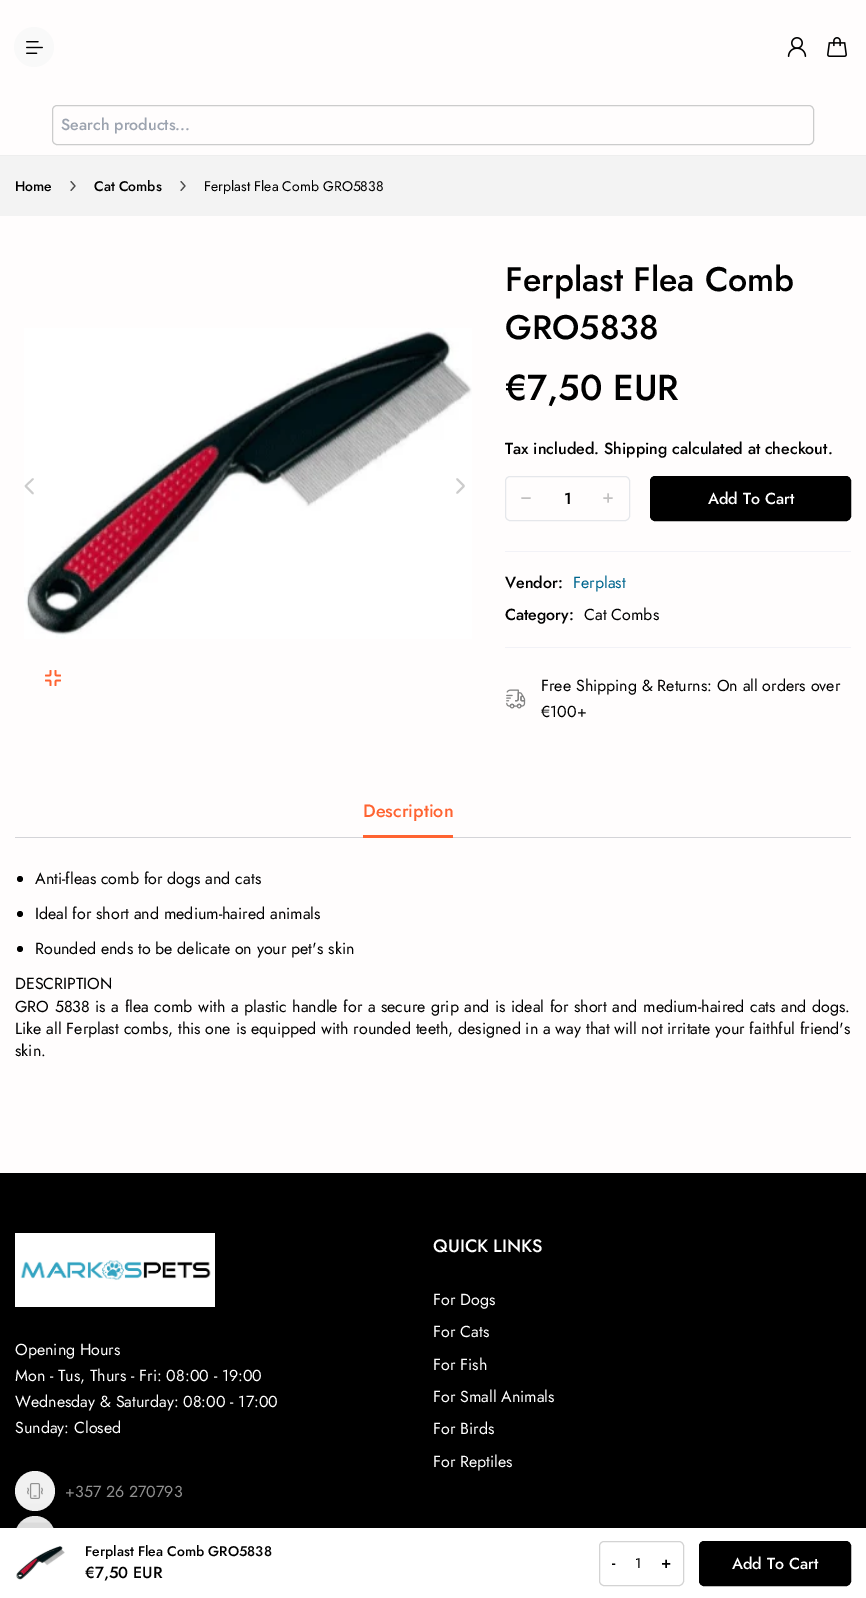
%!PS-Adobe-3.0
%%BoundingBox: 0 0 866 1598
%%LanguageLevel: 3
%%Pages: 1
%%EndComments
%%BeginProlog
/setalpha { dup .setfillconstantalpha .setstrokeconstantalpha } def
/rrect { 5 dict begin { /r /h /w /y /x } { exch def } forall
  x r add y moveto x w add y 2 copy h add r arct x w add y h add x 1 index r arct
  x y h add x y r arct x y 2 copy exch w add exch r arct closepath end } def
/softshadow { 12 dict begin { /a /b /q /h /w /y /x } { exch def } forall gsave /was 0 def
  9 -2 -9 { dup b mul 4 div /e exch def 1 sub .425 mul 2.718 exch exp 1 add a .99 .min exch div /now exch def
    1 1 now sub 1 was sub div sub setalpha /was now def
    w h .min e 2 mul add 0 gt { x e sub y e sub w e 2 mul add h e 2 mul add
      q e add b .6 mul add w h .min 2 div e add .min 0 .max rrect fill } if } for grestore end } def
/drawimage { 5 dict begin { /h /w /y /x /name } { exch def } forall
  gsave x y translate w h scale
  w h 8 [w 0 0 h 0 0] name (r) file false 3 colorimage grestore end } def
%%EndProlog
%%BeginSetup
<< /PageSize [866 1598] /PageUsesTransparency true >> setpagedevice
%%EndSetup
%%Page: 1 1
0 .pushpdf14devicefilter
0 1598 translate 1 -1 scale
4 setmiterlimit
1 0.992 0.992 setrgbcolor
0 0 866 1598 rectfill
0.933 setgray
0 155 866 1 rectfill
0.976 setgray
newpath 34 47 20 0 360 arc closepath fill
(images/1.raw) 26 41 17 13 drawimage
(images/2.raw) 787 37 20 20 drawimage
(images/3.raw) 827 37 20 20 drawimage
0.8 setgray
52.5 105.5 761 39 4.5 rrect stroke
0.953 setgray
0 156 866 60 rectfill
0.286 setgray
1.1 setlinewidth
1 setlinecap
1 setlinejoin
newpath 71 181.5 moveto 75 186 lineto 71 190.5 lineto stroke
newpath 181 181.5 moveto 185 186 lineto 181 190.5 lineto stroke
(images/4.raw) 24 328 448 311 drawimage
0.8 setgray
1.8 setlinewidth
newpath 33 493.5 moveto 25.5 486 lineto 33 479 lineto stroke
newpath 457 479 moveto 464 486 lineto 457 493 lineto stroke
(images/5.raw) 45 670 16 16 drawimage
0.898 0.906 0.922 setrgbcolor
1 setlinewidth
0 setlinecap
0 setlinejoin
505.5 476.5 124 44 4.5 rrect stroke
0.757 0.753 0.753 setrgbcolor
1.5 setlinewidth
1 setlinecap
1 setlinejoin
newpath 522 498 moveto 530 498 lineto stroke
newpath 604 498 moveto 612 498 lineto 608 502 moveto 608 494 lineto stroke
0 setgray
650.5 476.5 200 44 4.5 rrect gsave fill grestore
1 setlinewidth
0 setlinecap
0 setlinejoin
stroke
0.949 0.949 0.969 setrgbcolor
505 551 346 1 rectfill
505 647 346 1 rectfill
(images/6.raw) 506 689 20 20 drawimage
0 setgray
0 1173 866 355 rectfill
0.945 setgray
newpath 35 1491 20 0 360 arc closepath fill
(images/9.raw) 27 1483 16 16 drawimage
newpath 35 1536 20 0 360 arc closepath fill
0 setgray
0 1532 866 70 0 12.5 0.3 softshadow
1 setgray
0 1528 866 70 rectfill
(images/7.raw) 16 1546 49 34 drawimage
0.827 setgray
599.5 1541.5 84 44 4.5 rrect stroke
0 setgray
699.5 1541.5 151 44 4.5 rrect gsave fill grestore
stroke
0.831 0.831 0.847 setrgbcolor
15 837 836 1 rectfill
1 0.388 0.192 setrgbcolor
363 835 90 3 rectfill
0 setgray
newpath 20 879 3 0 360 arc closepath fill
newpath 20 914 3 0 360 arc closepath fill
newpath 20 949 3 0 360 arc closepath fill
(images/8.raw) 15 1233 200 74 drawimage
/Jost-Medium [16 0 0 -16 0 0] selectfont
0.612 0.639 0.686 setrgbcolor
61 130 moveto (Search products...) show
/Jost-Medium [14 0 0 -14 0 0] selectfont
0 setgray
15 191 moveto (Home) show
94 191 moveto (Cat Combs) show
/Jost-Regular [14 0 0 -14 0 0] selectfont
204 191 moveto (Ferplast Flea Comb GRO5838) show
/Jost-Medium [34 0 0 -34 0 0] selectfont
505 291 moveto (Ferplast Flea Comb) show
505 339 moveto (GRO5838) show
/Jost-Medium [36 0 0 -36 0 0] selectfont
505 400 moveto (€7,50 EUR) show
/Jost-Medium [16 0 0 -16 0 0] selectfont
505 454 moveto (Tax included. Shipping calculated at checkout.) show
564 504 moveto (1) show
1 setgray
708 504 moveto (Add To Cart) show
0 setgray
505 588 moveto (Vendor:) show
/Jost-Regular [16 0 0 -16 0 0] selectfont
0 0.4 0.557 setrgbcolor
573 588 moveto (Ferplast) show
/Jost-Medium [16 0 0 -16 0 0] selectfont
0 setgray
505 620 moveto (Category:) show
/Jost-Regular [16 0 0 -16 0 0] selectfont
584 620 moveto (Cat Combs) show
541 691 moveto (Free Shipping & Returns: On all orders over) show
541 717 moveto (€100+) show
/Jost-Medium [14 0 0 -14 0 0] selectfont
85 1556 moveto (Ferplast Flea Comb GRO5838) show
/Jost-Medium [16 0 0 -16 0 0] selectfont
85 1578 moveto (€7,50 EUR) show
612 1568 moveto (-) show
/Jost-Regular [14 0 0 -14 0 0] selectfont
635 1568 moveto (1) show
/Jost-Medium [16 0 0 -16 0 0] selectfont
661 1568 moveto (+) show
1 setgray
732 1569 moveto (Add To Cart) show
/Jost-Medium [18 0 0 -18 0 0] selectfont
1 0.388 0.192 setrgbcolor
363 817 moveto (Description) show
/Jost-Regular [16 0 0 -16 0 0] selectfont
0 setgray
35 884 moveto (Anti-fleas comb for dogs and cats) show
35 919 moveto (Ideal for short and medium-haired animals) show
35 954 moveto (Rounded ends to be delicate on your pet's skin) show
15 989 moveto (DESCRIPTION) show
15 1012 moveto 0.75 0 32 (GRO 5838 is a flea comb with a plastic handle for a secure grip and is ideal for short and medium-haired cats and dogs.) widthshow
15 1034 moveto (Like all Ferplast combs, this one is equipped with rounded teeth, designed in a way that will not irritate your faithful friend's) show
15 1056 moveto (skin.) show
1 setgray
15 1355 moveto (Opening Hours) show
15 1381 moveto (Mon - Tus, Thurs - Fri: 08:00 - 19:00) show
15 1407 moveto (Wednesday & Saturday: 08:00 - 17:00) show
15 1433 moveto (Sunday: Closed) show
0.565 setgray
65 1497 moveto (+357 26 270793) show
/Jost-Medium [18 0 0 -18 0 0] selectfont
1 setgray
433 1252 moveto (QUICK LINKS) show
/Jost-Regular [16 0 0 -16 0 0] selectfont
433 1305 moveto (For Dogs) show
433 1337 moveto (For Cats) show
433 1370 moveto (For Fish) show
433 1402 moveto (For Small Animals) show
433 1434 moveto (For Birds) show
433 1467 moveto (For Reptiles) show
.poppdf14devicefilter showpage
%%EOF
